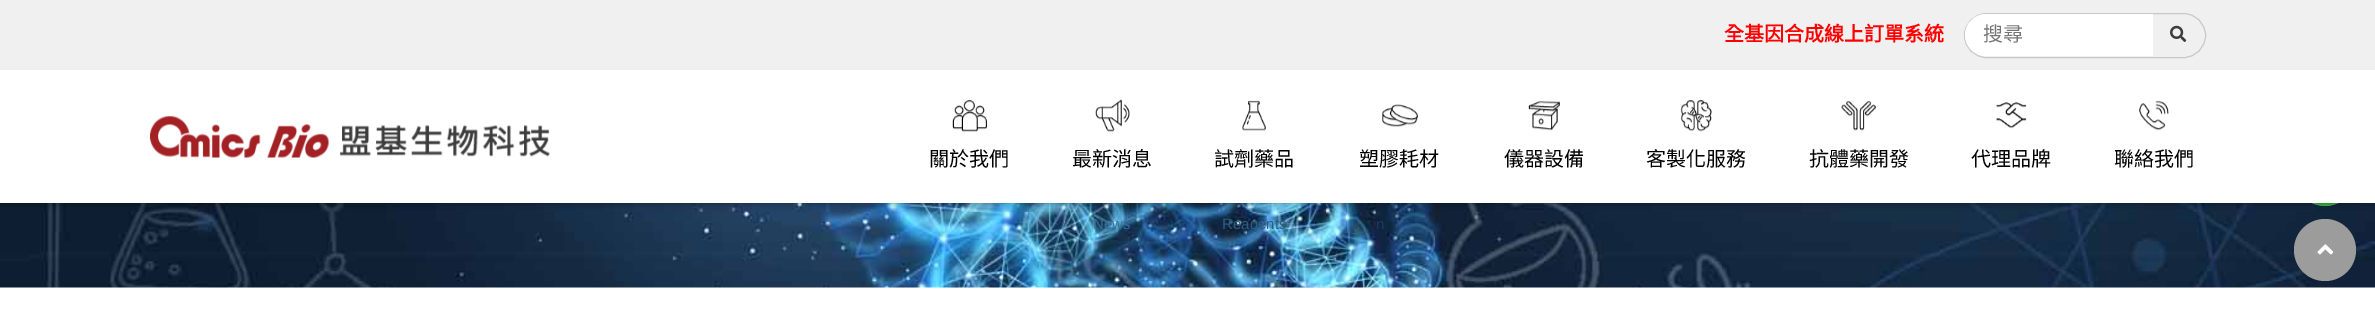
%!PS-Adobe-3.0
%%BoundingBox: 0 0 2375 318
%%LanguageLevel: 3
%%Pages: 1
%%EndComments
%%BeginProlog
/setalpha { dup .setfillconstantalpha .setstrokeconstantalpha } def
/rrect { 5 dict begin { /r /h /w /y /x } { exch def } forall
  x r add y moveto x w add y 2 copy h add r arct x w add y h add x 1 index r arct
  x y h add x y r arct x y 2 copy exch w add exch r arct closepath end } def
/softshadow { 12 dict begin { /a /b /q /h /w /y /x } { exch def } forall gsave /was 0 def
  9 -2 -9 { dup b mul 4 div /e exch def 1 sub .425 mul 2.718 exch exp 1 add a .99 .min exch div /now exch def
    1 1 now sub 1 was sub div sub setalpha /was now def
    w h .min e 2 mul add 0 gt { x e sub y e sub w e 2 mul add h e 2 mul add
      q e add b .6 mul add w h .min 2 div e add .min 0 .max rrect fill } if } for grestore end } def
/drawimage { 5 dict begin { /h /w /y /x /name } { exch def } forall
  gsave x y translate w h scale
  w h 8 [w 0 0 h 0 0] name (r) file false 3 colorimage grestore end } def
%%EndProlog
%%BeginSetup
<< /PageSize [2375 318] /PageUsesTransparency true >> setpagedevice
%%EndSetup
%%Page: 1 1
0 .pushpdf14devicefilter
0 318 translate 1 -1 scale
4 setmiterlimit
1 setgray
0 0 2375 318 rectfill
(images/14.raw) 0 203 2375 85 drawimage
0.612 setgray
newpath 2325 175 31 0 360 arc closepath fill
(images/12.raw) 2312 203 26 4 drawimage
0 setgray
0 0 2375 203 0 4.5 0.4 softshadow
1 setgray
0 70 2375 133 rectfill
0.941 setgray
0 0 2375 70 rectfill
0.784 setgray
1964.5 13.5 241 44 22 rrect stroke
1 setgray
newpath 1986 14 moveto 2153 14 lineto 2153 56 lineto 1986 56 lineto 1974.5 56 1965 46.5 1965 35 curveto 1965 23.5 1974.5 14 1986 14 curveto closepath fill
(images/1.raw) 2170 25 17 17 drawimage
(images/2.raw) 150 115 400 43 drawimage
(images/3.raw) 952 100 35 32 drawimage
(images/4.raw) 1095 99 35 33 drawimage
(images/5.raw) 1242 100 24 31 drawimage
(images/6.raw) 1382 104 36 23 drawimage
(images/7.raw) 1528 101 32 30 drawimage
(images/8.raw) 1680 100 32 32 drawimage
(images/9.raw) 1841 100 35 31 drawimage
(images/10.raw) 1996 102 31 27 drawimage
(images/11.raw) 2139 100 30 31 drawimage
0.612 setgray
newpath 2325 250 31 0 360 arc closepath fill
(images/13.raw) 2317 244 17 11 drawimage
/NotoSansCJKTC-Bold [20 0 0 -20 0 0] selectfont
1 0 0 setrgbcolor
1724 41 moveto (全基因合成線上訂單系統) show
/NotoSansCJKTC-Regular [20 0 0 -20 0 0] selectfont
0.459 setgray
1983 41 moveto (搜尋) show
0 setgray
929 166 moveto (關於我們) show
1072 166 moveto (最新消息) show
/LiberationSans-Regular [15 0 0 -15 0 0] selectfont
0.212 0.431 0.576 setrgbcolor
1093 229 moveto (News) show
/NotoSansCJKTC-Regular [20 0 0 -20 0 0] selectfont
0 setgray
1214 166 moveto (試劑藥品) show
/LiberationSans-Regular [15 0 0 -15 0 0] selectfont
0.184 0.357 0.498 setrgbcolor
1222 229 moveto (Reagents) show
/NotoSansCJKTC-Regular [20 0 0 -20 0 0] selectfont
0 setgray
1359 166 moveto (塑膠耗材) show
/LiberationSans-Regular [15 0 0 -15 0 0] selectfont
0.098 0.227 0.369 setrgbcolor
1376 229 moveto (n) show
/NotoSansCJKTC-Regular [20 0 0 -20 0 0] selectfont
0 setgray
1504 166 moveto (儀器設備) show
1646 166 moveto (客製化服務) show
1809 166 moveto (抗體藥開發) show
1971 166 moveto (代理品牌) show
2114 166 moveto (聯絡我們) show
.poppdf14devicefilter showpage
%%EOF
